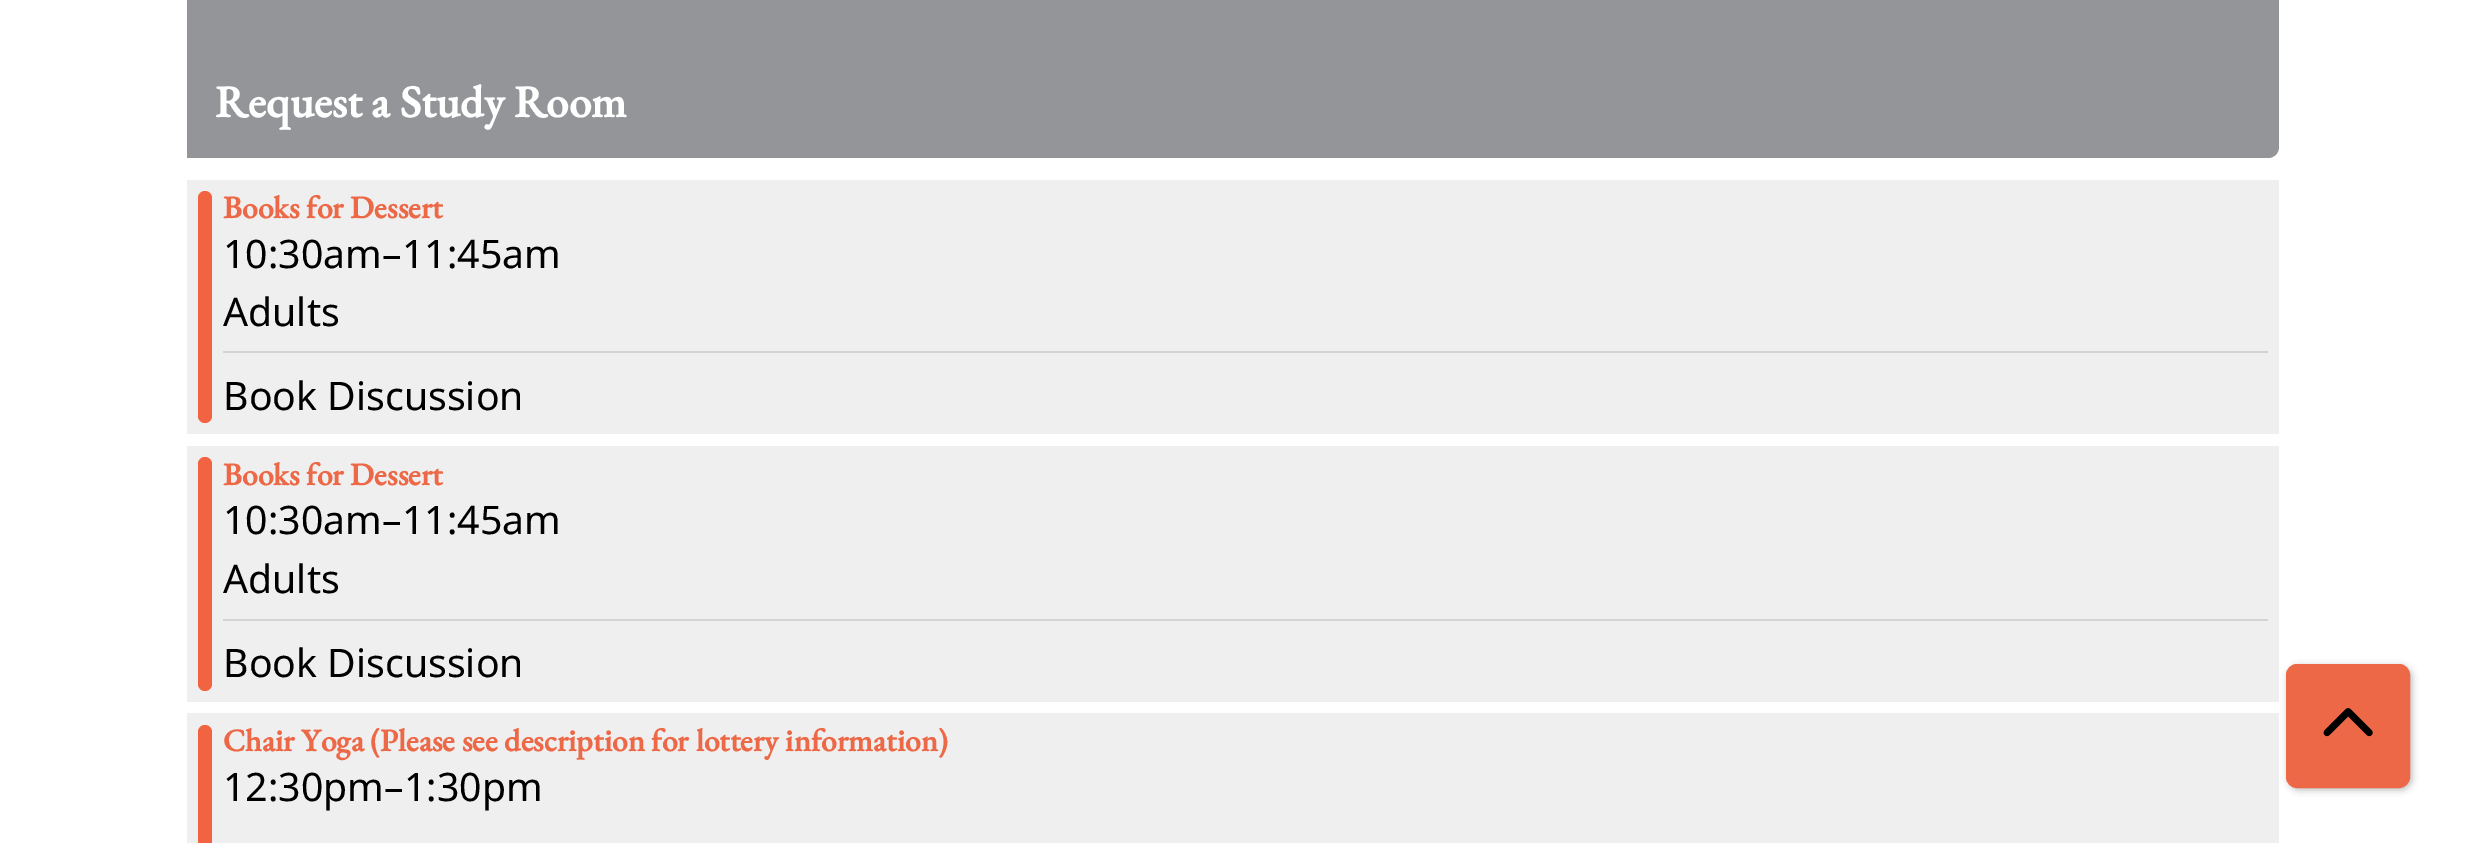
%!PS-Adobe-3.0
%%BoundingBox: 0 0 2465 843
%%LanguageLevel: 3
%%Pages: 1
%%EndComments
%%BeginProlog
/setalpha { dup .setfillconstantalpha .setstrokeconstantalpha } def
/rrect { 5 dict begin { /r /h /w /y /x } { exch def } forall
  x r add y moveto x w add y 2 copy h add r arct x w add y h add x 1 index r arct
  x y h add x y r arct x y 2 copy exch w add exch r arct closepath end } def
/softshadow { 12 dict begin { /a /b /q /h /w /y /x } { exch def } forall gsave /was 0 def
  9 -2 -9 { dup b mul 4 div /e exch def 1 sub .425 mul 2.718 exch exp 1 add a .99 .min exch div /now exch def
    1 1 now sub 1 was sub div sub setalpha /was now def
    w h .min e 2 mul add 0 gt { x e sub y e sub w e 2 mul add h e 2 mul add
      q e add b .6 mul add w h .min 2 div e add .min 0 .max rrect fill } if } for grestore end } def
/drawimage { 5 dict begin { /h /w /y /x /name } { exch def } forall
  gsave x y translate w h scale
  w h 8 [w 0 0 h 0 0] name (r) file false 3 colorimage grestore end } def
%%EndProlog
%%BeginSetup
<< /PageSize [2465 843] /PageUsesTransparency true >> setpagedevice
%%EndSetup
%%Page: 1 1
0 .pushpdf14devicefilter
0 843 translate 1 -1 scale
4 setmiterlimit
1 setgray
0 0 2465 843 rectfill
0.576 0.584 0.596 setrgbcolor
187 -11 2092 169 11 rrect fill
187 147 11 11 rectfill
0.937 setgray
187 180 2092 254 rectfill
0.949 0.388 0.255 setrgbcolor
198 191 14 232 7 rrect fill
0.824 0.827 0.835 setrgbcolor
223 351 2045 2 rectfill
0.937 setgray
187 446 2092 256 rectfill
0.949 0.388 0.255 setrgbcolor
198 457 14 234 7 rrect fill
0.824 0.827 0.835 setrgbcolor
223 619 2045 2 rectfill
0.937 setgray
187 713 2092 130 rectfill
0.949 0.388 0.255 setrgbcolor
198 725 14 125 7 rrect fill
0 setgray
2288 666 124 124 11 3.5 0.25 softshadow
0.925 0.408 0.275 setrgbcolor
2287 665 122 122 10 rrect gsave fill grestore
2 setlinewidth
stroke
(images/1.raw) 2323 708 50 29 drawimage
/EBGaramond-Bold [45 0 0 -45 0 0] selectfont
1 setgray
215 117 moveto (Request a Study Room) show
/EBGaramond-Bold [31.5 0 0 -31.5 0 0] selectfont
0.925 0.408 0.275 setrgbcolor
223 218 moveto (Books for Dessert) show
/NotoSans-Regular [39.25 0 0 -39.25 0 0] selectfont
0 setgray
223 268 moveto (10:30am–11:45am) show
223 326 moveto (Adults) show
223 410 moveto (Book Discussion) show
/EBGaramond-Bold [31.5 0 0 -31.5 0 0] selectfont
0.925 0.408 0.275 setrgbcolor
223 485 moveto (Books for Dessert) show
/NotoSans-Regular [39.25 0 0 -39.25 0 0] selectfont
0 setgray
223 534 moveto (10:30am–11:45am) show
223 593 moveto (Adults) show
223 677 moveto (Book Discussion) show
/EBGaramond-Bold [31.5 0 0 -31.5 0 0] selectfont
0.925 0.408 0.275 setrgbcolor
223 751 moveto (Chair Yoga \(Please see description for lottery information\)) show
/NotoSans-Regular [39.25 0 0 -39.25 0 0] selectfont
0 setgray
223 801 moveto (12:30pm–1:30pm) show
.poppdf14devicefilter showpage
%%EOF
